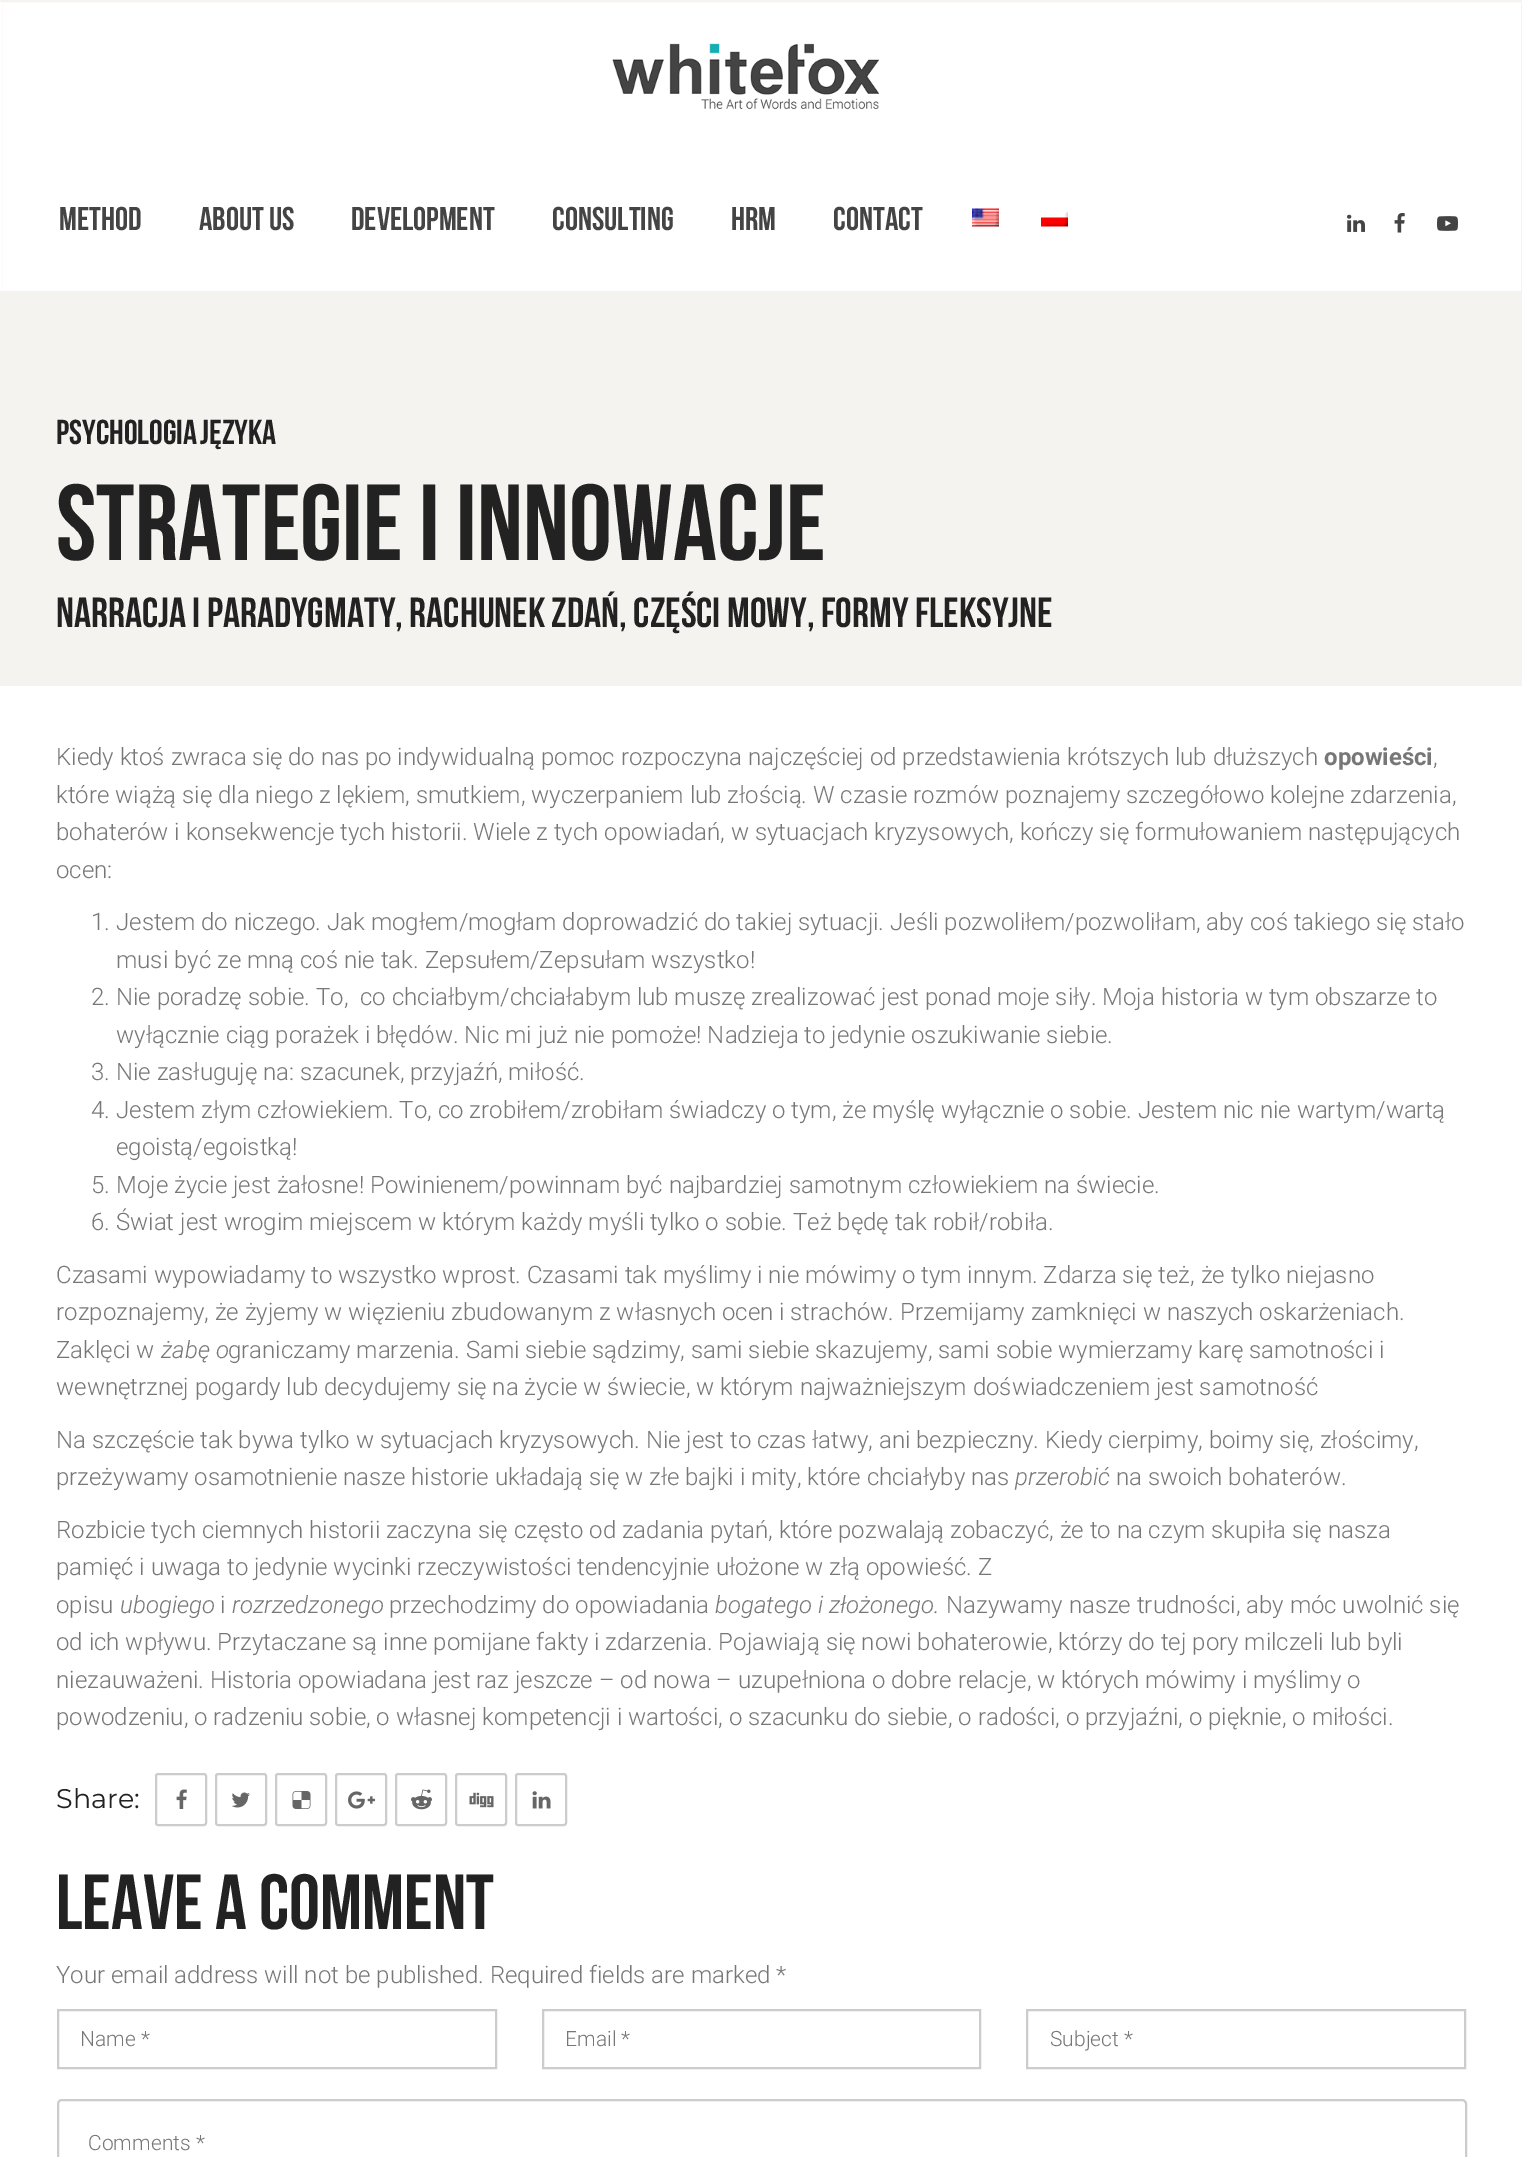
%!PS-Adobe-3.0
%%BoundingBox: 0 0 1522 2157
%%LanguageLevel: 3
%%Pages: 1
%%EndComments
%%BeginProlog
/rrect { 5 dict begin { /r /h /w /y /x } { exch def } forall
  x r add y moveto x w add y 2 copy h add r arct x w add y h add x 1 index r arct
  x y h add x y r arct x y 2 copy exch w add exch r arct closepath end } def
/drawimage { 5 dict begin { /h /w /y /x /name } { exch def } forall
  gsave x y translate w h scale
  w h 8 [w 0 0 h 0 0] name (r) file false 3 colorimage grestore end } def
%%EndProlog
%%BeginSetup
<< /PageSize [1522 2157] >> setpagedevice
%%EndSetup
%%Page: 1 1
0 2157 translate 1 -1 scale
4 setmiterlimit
1 setgray
0 0 1522 2157 rectfill
0.961 0.953 0.937 setrgbcolor
2 setlinewidth
1 1 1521 291 rectstroke
1 setgray
0 2 2 289 rectfill
(images/1.raw) 612 43 267 67 drawimage
(images/2.raw) 972 208 27 19 drawimage
(images/3.raw) 1041 211 27 16 drawimage
(images/4.raw) 1347 214 18 18 drawimage
(images/5.raw) 1394 213 11 20 drawimage
(images/6.raw) 1437 216 21 15 drawimage
0.961 0.953 0.937 setrgbcolor
0 293 1522 393 rectfill
0.8 setgray
156 1774 50 51 2 rrect stroke
(images/7.raw) 176 1789 11 20 drawimage
216 1774 50 51 2 rrect stroke
(images/8.raw) 231 1792 19 16 drawimage
276 1774 50 51 2 rrect stroke
(images/9.raw) 292 1791 19 18 drawimage
336 1774 50 51 2 rrect stroke
(images/10.raw) 348 1791 27 18 drawimage
396 1774 50 51 2 rrect stroke
(images/11.raw) 411 1789 21 21 drawimage
456 1774 50 51 2 rrect stroke
(images/12.raw) 469 1792 25 16 drawimage
516 1774 50 51 2 rrect stroke
(images/13.raw) 532 1791 19 18 drawimage
58 2010 438 58 rectstroke
543 2010 437 58 rectstroke
1027 2010 438 58 rectstroke
58 2100 1408 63 4 rrect stroke
/BebasNeue-Bold [33 0 0 -33 0 0] selectfont
0.267 setgray
59 230 moveto (Method) show
199 230 moveto (About us) show
351 230 moveto (Development) show
552 230 moveto (Consulting) show
731 230 moveto (HRM) show
833 230 moveto (Contact) show
/BebasNeue-Bold [34.5 0 0 -34.5 0 0] selectfont
0.133 setgray
56 444 moveto -2 0 32 (Psychologia języka) widthshow
/BebasNeue-Bold [108 0 0 -108 0 0] selectfont
56 560 moveto (Strategie i innowacje) show
/BebasNeue-Bold [42 0 0 -42 0 0] selectfont
56 627 moveto (narracja i paradygmaty, rachunek zdań, części mowy, formy fleksyjne) show
/Roboto-Light [24 0 0 -24 0 0] selectfont
0.467 setgray
56 765 moveto (Kiedy ktoś zwraca się do nas po indywidualną pomoc rozpoczyna najczęściej od przedstawienia krótszych lub dłuższych) show
/Roboto-Bold [24 0 0 -24 0 0] selectfont
1324 765 moveto (opowieści) show
/Roboto-Light [24 0 0 -24 0 0] selectfont
1433 765 moveto (,) show
56 803 moveto (które wiążą się dla niego z lękiem, smutkiem, wyczerpaniem lub złością. W czasie rozmów poznajemy szczegółowo kolejne zdarzenia,) show
56 840 moveto (bohaterów i konsekwencje tych historii. Wiele z tych opowiadań, w sytuacjach kryzysowych, kończy się formułowaniem następujących) show
56 878 moveto (ocen:) show
91 930 moveto (1. Jestem do niczego. Jak mogłem/mogłam doprowadzić do takiej sytuacji. Jeśli pozwoliłem/pozwoliłam, aby coś takiego się stało) show
116 968 moveto (musi być ze mną coś nie tak. Zepsułem/Zepsułam wszystko!) show
91 1005 moveto (2. Nie poradzę sobie. To,  co chciałbym/chciałabym lub muszę zrealizować jest ponad moje siły. Moja historia w tym obszarze to) show
116 1043 moveto (wyłącznie ciąg porażek i błędów. Nic mi już nie pomoże! Nadzieja to jedynie oszukiwanie siebie.) show
91 1080 moveto (3. Nie zasługuję na: szacunek, przyjaźń, miłość.) show
91 1118 moveto (4. Jestem złym człowiekiem. To, co zrobiłem/zrobiłam świadczy o tym, że myślę wyłącznie o sobie. Jestem nic nie wartym/wartą) show
116 1155 moveto (egoistą/egoistką!) show
91 1193 moveto (5. Moje życie jest żałosne! Powinienem/powinnam być najbardziej samotnym człowiekiem na świecie.) show
91 1230 moveto (6. Świat jest wrogim miejscem w którym każdy myśli tylko o sobie. Też będę tak robił/robiła.) show
56 1283 moveto (Czasami wypowiadamy to wszystko wprost. Czasami tak myślimy i nie mówimy o tym innym. Zdarza się też, że tylko niejasno) show
56 1320 moveto (rozpoznajemy, że żyjemy w więzieniu zbudowanym z własnych ocen i strachów) show
/Roboto-LightItalic [24 0 0 -24 0 0] selectfont
889 1320 moveto (.) show
/Roboto-Light [24 0 0 -24 0 0] selectfont
900 1320 moveto (Przemijamy zamknięci w naszych oskarżeniach.) show
56 1358 moveto (Zaklęci w) show
/Roboto-LightItalic [24 0 0 -24 0 0] selectfont
161 1358 moveto (żabę o) show
/Roboto-Light [24 0 0 -24 0 0] selectfont
228 1358 moveto (graniczamy marzenia. Sami siebie sądzimy, sami siebie skazujemy, sami sobie wymierzamy karę samotności i) show
56 1395 moveto (wewnętrznej pogardy lub decydujemy się na życie w świecie, w którym najważniejszym doświadczeniem jest samotność) show
56 1448 moveto (Na szczęście tak bywa tylko w sytuacjach kryzysowych. Nie jest to czas łatwy, ani bezpieczny. Kiedy cierpimy, boimy się, złościmy,) show
56 1485 moveto (przeżywamy osamotnienie nasze historie układają się w złe bajki i mity, które chciałyby nas) show
/Roboto-LightItalic [24 0 0 -24 0 0] selectfont
1015 1485 moveto (przerobić) show
/Roboto-Light [24 0 0 -24 0 0] selectfont
1116 1485 moveto (na swoich bohaterów.) show
56 1538 moveto (Rozbicie tych ciemnych historii zaczyna się często od zadania pytań, które pozwalają zobaczyć, że to na czym skupiła się nasza) show
56 1575 moveto (pamięć i uwaga to jedynie wycinki rzeczywistości tendencyjnie ułożone w złą opowieść. Z) show
56 1613 moveto (opisu) show
/Roboto-LightItalic [24 0 0 -24 0 0] selectfont
120 1613 moveto (ubogiego) show
/Roboto-Light [24 0 0 -24 0 0] selectfont
220 1613 moveto (i) show
/Roboto-LightItalic [24 0 0 -24 0 0] selectfont
232 1613 moveto (rozrzedzonego) show
/Roboto-Light [24 0 0 -24 0 0] selectfont
389 1613 moveto (przechodzimy do opowiadania) show
/Roboto-LightItalic [24 0 0 -24 0 0] selectfont
715 1613 moveto (bogatego i złożonego.) show
/Roboto-Light [24 0 0 -24 0 0] selectfont
946 1613 moveto (Nazywamy nasze trudności, aby móc uwolnić się) show
56 1650 moveto (od ich wpływu. Przytaczane są inne pomijane fakty i zdarzenia. Pojawiają się nowi bohaterowie, którzy do tej pory milczeli lub byli) show
56 1688 moveto (niezauważeni. Historia opowiadana jest raz jeszcze – od nowa – uzupełniona o dobre relacje, w których mówimy i myślimy o) show
56 1725 moveto (powodzeniu, o radzeniu sobie, o własnej kompetencji i wartości, o szacunku do siebie, o radości, o przyjaźni, o pięknie, o miłości.) show
/Montserrat-Regular [27 0 0 -27 0 0] selectfont
0.133 setgray
56 1808 moveto (Share:) show
/BebasNeue-Bold [78 0 0 -78 0 0] selectfont
56 1929 moveto (Leave a Comment) show
/Roboto-Light [24 0 0 -24 0 0] selectfont
0.467 setgray
56 1983 moveto (Your email address will not be published. Required fields are marked *) show
/Roboto-Light [21 0 0 -21 0 0] selectfont
80 2046 moveto (Name *) show
565 2046 moveto (Email *) show
1050 2046 moveto (Subject *) show
88 2150 moveto (Comments *) show
showpage
%%EOF
